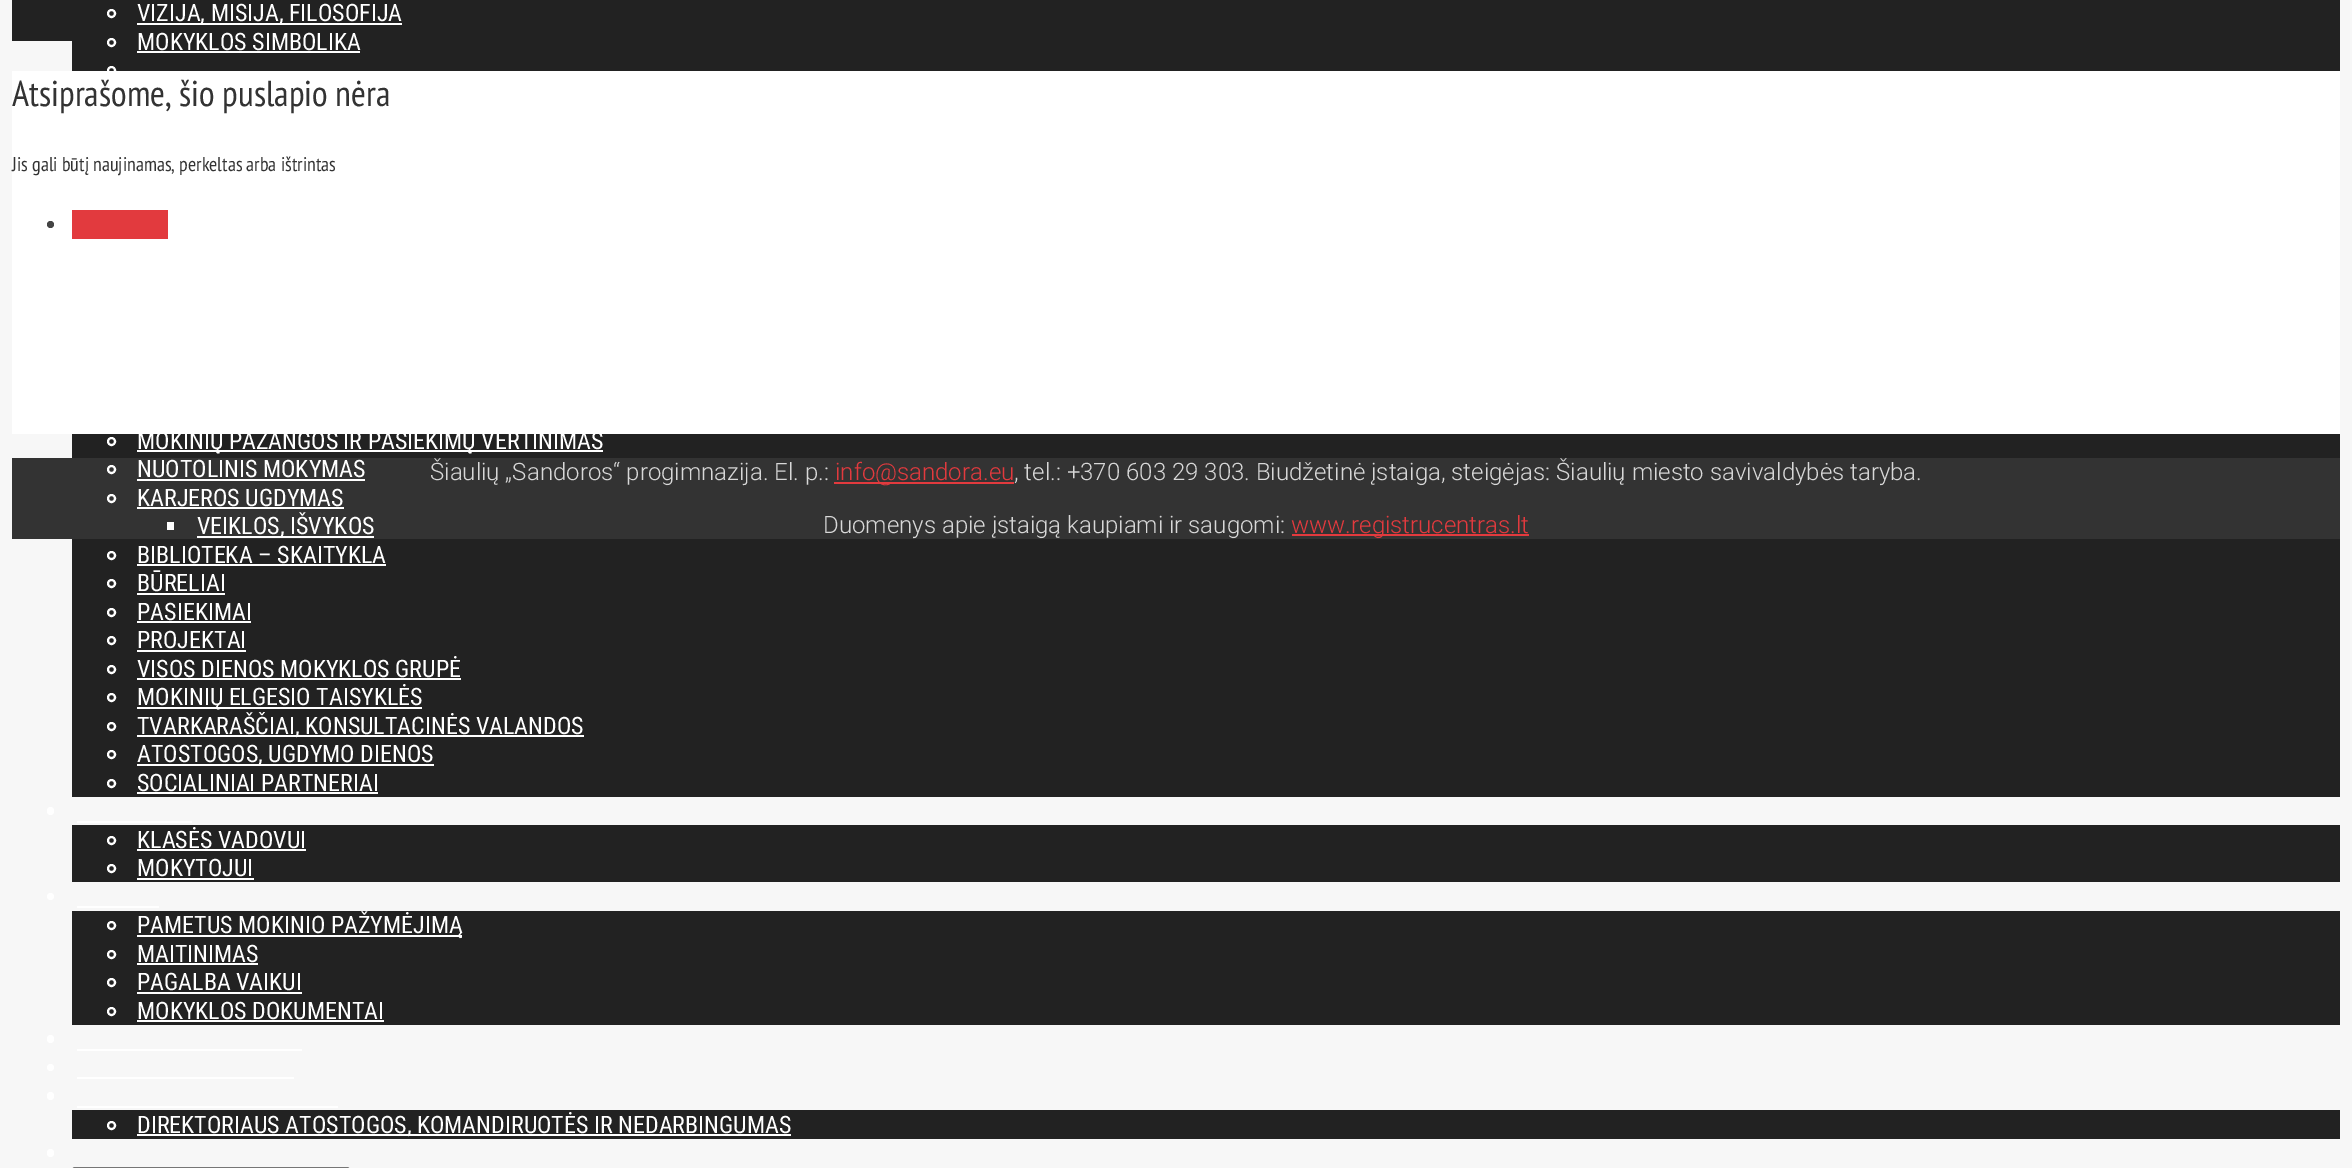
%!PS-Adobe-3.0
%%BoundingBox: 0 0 2352 1168
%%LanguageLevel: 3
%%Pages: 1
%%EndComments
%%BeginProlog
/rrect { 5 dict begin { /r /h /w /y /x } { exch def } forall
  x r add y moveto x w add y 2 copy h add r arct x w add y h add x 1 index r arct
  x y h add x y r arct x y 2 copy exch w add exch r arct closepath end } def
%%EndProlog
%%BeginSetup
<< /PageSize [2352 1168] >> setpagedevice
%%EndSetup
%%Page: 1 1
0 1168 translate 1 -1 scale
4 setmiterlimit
0.969 setgray
0 0 2352 1168 rectfill
0.133 setgray
12 0 60 41 rectfill
72 0 2268 71 rectfill
1 setgray
2 setlinewidth
newpath 111.5 13.5 3.5 0 360 arc closepath stroke
137 23 265 2 rectfill
newpath 111.5 42.5 3.5 0 360 arc closepath stroke
137 51 223 2 rectfill
12 71 2328 363 rectfill
newpath 111.5 70.5 3.5 0 360 arc closepath stroke
0.133 setgray
72 434 2268 363 rectfill
1 setgray
newpath 111.5 441.5 3.5 0 360 arc closepath stroke
137 450 466 2 rectfill
0.2 setgray
12 458 2328 81 rectfill
1 setgray
newpath 111.5 469.5 3.5 0 360 arc closepath stroke
137 479 228 2 rectfill
newpath 111.5 498.5 3.5 0 360 arc closepath stroke
137 507 207 2 rectfill
167 522 7 8 rectfill
197 536 177 2 rectfill
newpath 111.5 555.5 3.5 0 360 arc closepath stroke
137 564 249 2 rectfill
newpath 111.5 583.5 3.5 0 360 arc closepath stroke
137 593 88 2 rectfill
newpath 111.5 612.5 3.5 0 360 arc closepath stroke
137 621 114 2 rectfill
newpath 111.5 640.5 3.5 0 360 arc closepath stroke
137 650 109 2 rectfill
newpath 111.5 669.5 3.5 0 360 arc closepath stroke
137 678 324 2 rectfill
newpath 111.5 697.5 3.5 0 360 arc closepath stroke
137 707 285 2 rectfill
newpath 111.5 726.5 3.5 0 360 arc closepath stroke
137 735 447 2 rectfill
newpath 111.5 754.5 3.5 0 360 arc closepath stroke
137 764 297 2 rectfill
newpath 111.5 783.5 3.5 0 360 arc closepath stroke
137 792 241 2 rectfill
47 807 7 8 3.5 rrect fill
77 821 115 2 rectfill
0.133 setgray
72 825 2268 57 rectfill
1 setgray
newpath 111.5 840.5 3.5 0 360 arc closepath stroke
137 849 169 2 rectfill
newpath 111.5 868.5 3.5 0 360 arc closepath stroke
137 878 117 2 rectfill
newpath 50.5 896.5 3.5 0 360 arc closepath fill
77 906 82 2 rectfill
0.133 setgray
72 911 2268 114 rectfill
1 setgray
newpath 111.5 925.5 3.5 0 360 arc closepath stroke
137 935 325 2 rectfill
newpath 111.5 954.5 3.5 0 360 arc closepath stroke
137 963 121 2 rectfill
newpath 111.5 982.5 3.5 0 360 arc closepath stroke
137 992 165 2 rectfill
newpath 111.5 1011.5 3.5 0 360 arc closepath stroke
137 1020 247 2 rectfill
47 1035 7 8 3.5 rrect fill
77 1049 225 2 rectfill
newpath 50.5 1067.5 3.5 0 360 arc closepath fill
77 1077 217 2 rectfill
47 1092 7 8 3.5 rrect fill
77 1106 261 2 rectfill
0.133 setgray
72 1110 2268 29 rectfill
1 setgray
newpath 111.5 1125.5 3.5 0 360 arc closepath stroke
137 1134 654 2 rectfill
47 1149 7 8 3.5 rrect fill
0.463 setgray
73 1168 276 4 2 rrect stroke
0.267 setgray
newpath 50.5 224.5 3.5 0 360 arc closepath fill
0.886 0.227 0.243 setrgbcolor
72 210 96 29 rectfill
834 482 180 2 rectfill
1292 534 237 2 rectfill
/RobotoCondensed-Regular [24 0 0 -24 0 0] selectfont
1 setgray
137 21 moveto (VIZIJA, MISIJA, FILOSOFIJA) show
137 50 moveto (MOKYKLOS SIMBOLIKA) show
137 449 moveto (MOKINIŲ PAŽANGOS IR PASIEKIMŲ VERTINIMAS) show
137 477 moveto (NUOTOLINIS MOKYMAS) show
137 506 moveto (KARJEROS UGDYMAS) show
197 534 moveto (VEIKLOS, IŠVYKOS) show
137 563 moveto (BIBLIOTEKA – SKAITYKLA) show
137 591 moveto (BŪRELIAI) show
137 620 moveto (PASIEKIMAI) show
137 648 moveto (PROJEKTAI) show
137 677 moveto (VISOS DIENOS MOKYKLOS GRUPĖ) show
137 705 moveto (MOKINIŲ ELGESIO TAISYKLĖS) show
137 734 moveto (TVARKARAŠČIAI, KONSULTACINĖS VALANDOS) show
137 762 moveto (ATOSTOGOS, UGDYMO DIENOS) show
137 791 moveto (SOCIALINIAI PARTNERIAI) show
137 848 moveto (KLASĖS VADOVUI) show
137 876 moveto (MOKYTOJUI) show
137 933 moveto (PAMETUS MOKINIO PAŽYMĖJIMĄ) show
137 962 moveto (MAITINIMAS) show
137 990 moveto (PAGALBA VAIKUI) show
137 1019 moveto (MOKYKLOS DOKUMENTAI) show
137 1133 moveto (DIREKTORIAUS ATOSTOGOS, KOMANDIRUOTĖS IR NEDARBINGUMAS) show
/PTSansNarrow-Regular [36 0 0 -36 0 0] selectfont
0.2 setgray
12 106 moveto (Atsiprašome, šio puslapio nėra) show
/PTSansNarrow-Regular [19.9 0 0 -19.9 0 0] selectfont
12 171 moveto (Jis gali būtį naujinamas, perkeltas arba ištrintas) show
/Roboto-Light [24 0 0 -24 0 0] selectfont
0.847 setgray
430 480 moveto (Šiaulių „Sandoros“ progimnazija. El. p.:) show
0.886 0.227 0.243 setrgbcolor
835 480 moveto (info@sandora.eu) show
0.847 setgray
1014 480 moveto (, tel.: +370 603 29 303. Biudžetinė įstaiga, steigėjas: Šiaulių miesto savivaldybės taryba.) show
823 533 moveto (Duomenys apie įstaigą kaupiami ir saugomi:) show
0.886 0.227 0.243 setrgbcolor
1291 533 moveto (www.registrucentras.lt) show
showpage
%%EOF
